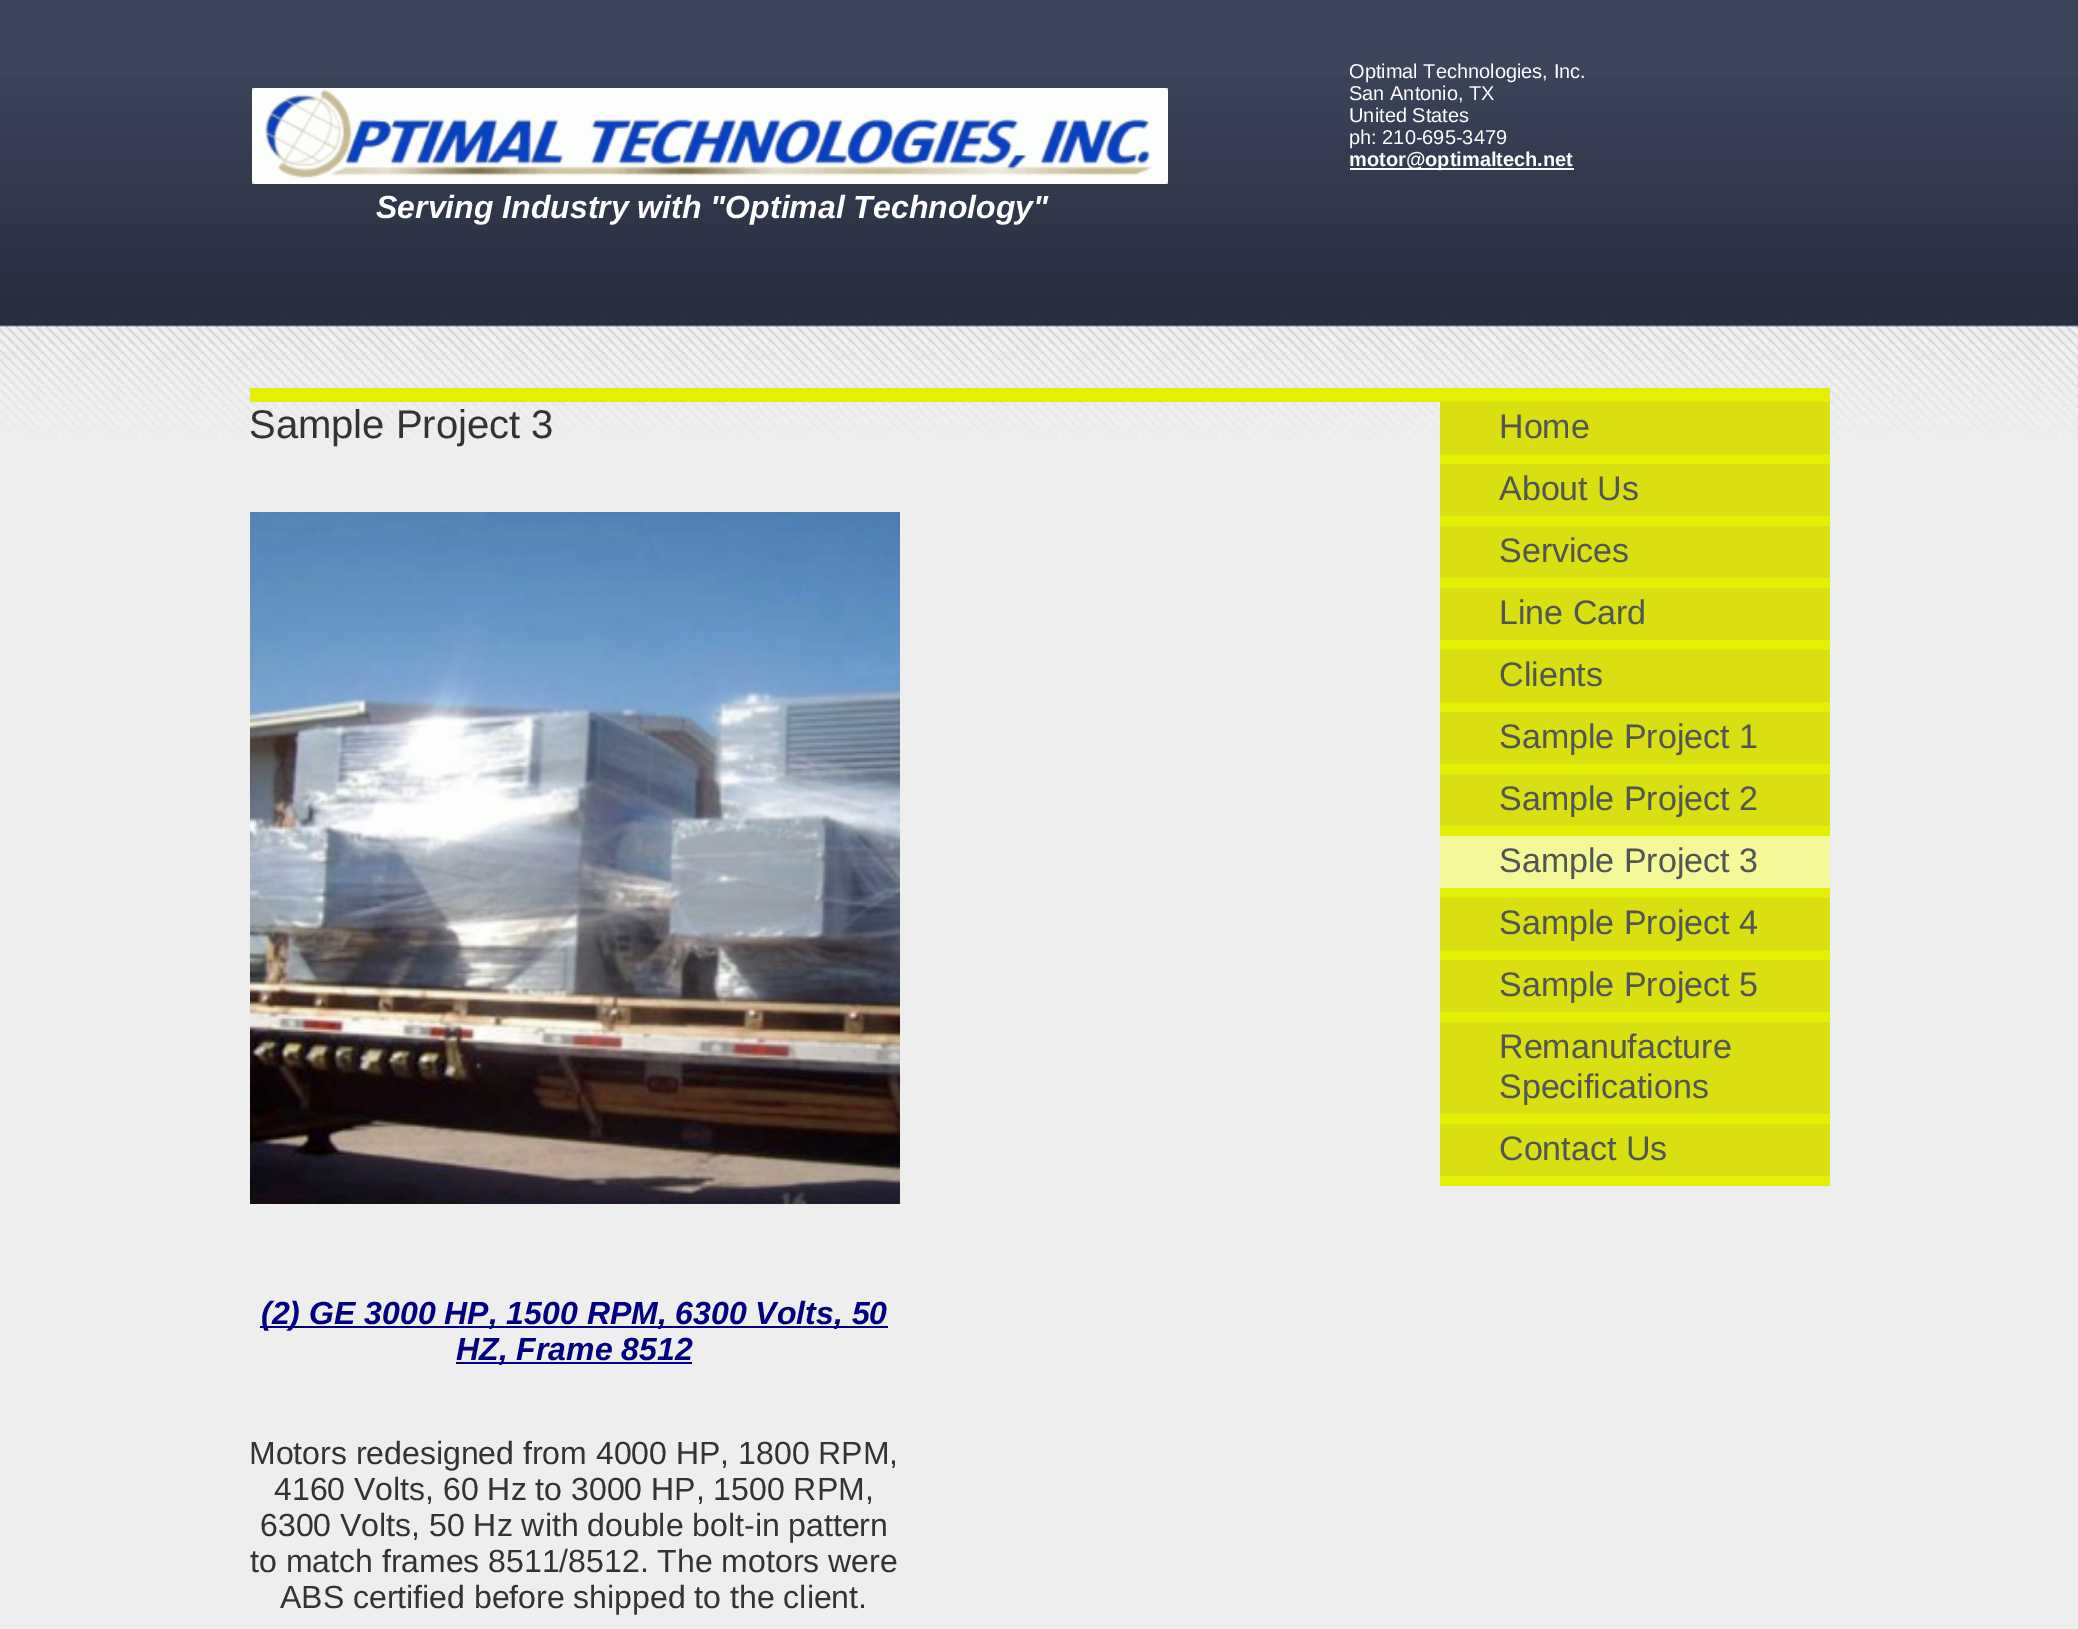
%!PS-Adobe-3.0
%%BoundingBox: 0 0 2078 1629
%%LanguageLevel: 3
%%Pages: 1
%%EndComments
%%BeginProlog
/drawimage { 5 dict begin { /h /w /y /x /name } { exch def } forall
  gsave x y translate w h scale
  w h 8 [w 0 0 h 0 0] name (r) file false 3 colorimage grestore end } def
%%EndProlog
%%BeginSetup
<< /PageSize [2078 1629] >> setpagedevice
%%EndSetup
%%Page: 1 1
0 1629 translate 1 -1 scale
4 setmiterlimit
0.933 setgray
0 0 2078 1629 rectfill
0.239 0.271 0.361 setrgbcolor
0 0 2078 76 rectfill
(images/1.raw) 0 76 2078 366 drawimage
1 setgray
1350 168 152 2 rectfill
1502 168 72 2 rectfill
(images/2.raw) 252 88 916 96 drawimage
0.89 0.941 0.012 setrgbcolor
250 388 1580 14 rectfill
(images/3.raw) 250 512 650 692 drawimage
0 0 0.502 setrgbcolor
260 1326 628 2 rectfill
456 1362 236 2 rectfill
0.89 0.941 0.012 setrgbcolor
1440 454 390 10 rectfill
0.855 0.875 0.067 setrgbcolor
1440 402 390 52 rectfill
0.89 0.941 0.012 setrgbcolor
1440 516 390 10 rectfill
0.855 0.875 0.067 setrgbcolor
1440 464 390 52 rectfill
0.89 0.941 0.012 setrgbcolor
1440 578 390 10 rectfill
0.855 0.875 0.067 setrgbcolor
1440 526 390 52 rectfill
0.89 0.941 0.012 setrgbcolor
1440 640 390 10 rectfill
0.855 0.875 0.067 setrgbcolor
1440 588 390 52 rectfill
0.89 0.941 0.012 setrgbcolor
1440 702 390 10 rectfill
0.855 0.875 0.067 setrgbcolor
1440 650 390 52 rectfill
0.89 0.941 0.012 setrgbcolor
1440 764 390 10 rectfill
0.855 0.875 0.067 setrgbcolor
1440 712 390 52 rectfill
0.89 0.941 0.012 setrgbcolor
1440 826 390 10 rectfill
0.855 0.875 0.067 setrgbcolor
1440 774 390 52 rectfill
0.89 0.941 0.012 setrgbcolor
1440 888 390 10 rectfill
0.957 0.973 0.6 setrgbcolor
1440 836 390 52 rectfill
0.89 0.941 0.012 setrgbcolor
1440 950 390 10 rectfill
0.855 0.875 0.067 setrgbcolor
1440 898 390 52 rectfill
0.89 0.941 0.012 setrgbcolor
1440 1012 390 10 rectfill
0.855 0.875 0.067 setrgbcolor
1440 960 390 52 rectfill
0.89 0.941 0.012 setrgbcolor
1440 1114 390 10 rectfill
0.855 0.875 0.067 setrgbcolor
1440 1022 390 92 rectfill
0.89 0.941 0.012 setrgbcolor
1440 1176 390 10 rectfill
0.855 0.875 0.067 setrgbcolor
1440 1124 390 52 rectfill
/LiberationSans-Regular [20 0 0 -20 0 0] selectfont
1 setgray
1349 78 moveto (Optimal Technologies, Inc.) show
1349 100 moveto (San Antonio, TX) show
1349 122 moveto (United States) show
1349 144 moveto (ph: 210-695-3479) show
/LiberationSans-Bold [20 0 0 -20 0 0] selectfont
1349 166 moveto (motor@optimaltech.net) show
/LiberationSans-BoldItalic [32 0 0 -32 0 0] selectfont
376 218 moveto (Serving Industry with "Optimal Technology") show
/LiberationSans-Regular [40 0 0 -40 0 0] selectfont
0.2 setgray
249 438 moveto (Sample Project 3) show
/LiberationSans-BoldItalic [32 0 0 -32 0 0] selectfont
0 0 0.502 setrgbcolor
261 1324 moveto (\(2\) GE 3000 HP, 1500 RPM, 6300 Volts, 50) show
456 1360 moveto (HZ, Frame 8512) show
/LiberationSans-Regular [32 0 0 -32 0 0] selectfont
0.2 setgray
249 1464 moveto (Motors redesigned from 4000 HP, 1800 RPM,) show
274 1500 moveto (4160 Volts, 60 Hz to 3000 HP, 1500 RPM,) show
260 1536 moveto (6300 Volts, 50 Hz with double bolt-in pattern) show
250 1572 moveto (to match frames 8511/8512. The motors were) show
280 1608 moveto (ABS certified before shipped to the client.) show
/LiberationSans-Regular [34 0 0 -34 0 0] selectfont
0.318 0.337 0.333 setrgbcolor
1499 438 moveto (Home) show
1499 500 moveto (About Us) show
1499 562 moveto (Services) show
1499 624 moveto (Line Card) show
1499 686 moveto (Clients) show
1499 748 moveto (Sample Project 1) show
1499 810 moveto (Sample Project 2) show
1499 872 moveto (Sample Project 3) show
1499 934 moveto (Sample Project 4) show
1499 996 moveto (Sample Project 5) show
1499 1058 moveto (Remanufacture) show
1499 1098 moveto (Specifications) show
1499 1160 moveto (Contact Us) show
showpage
%%EOF
